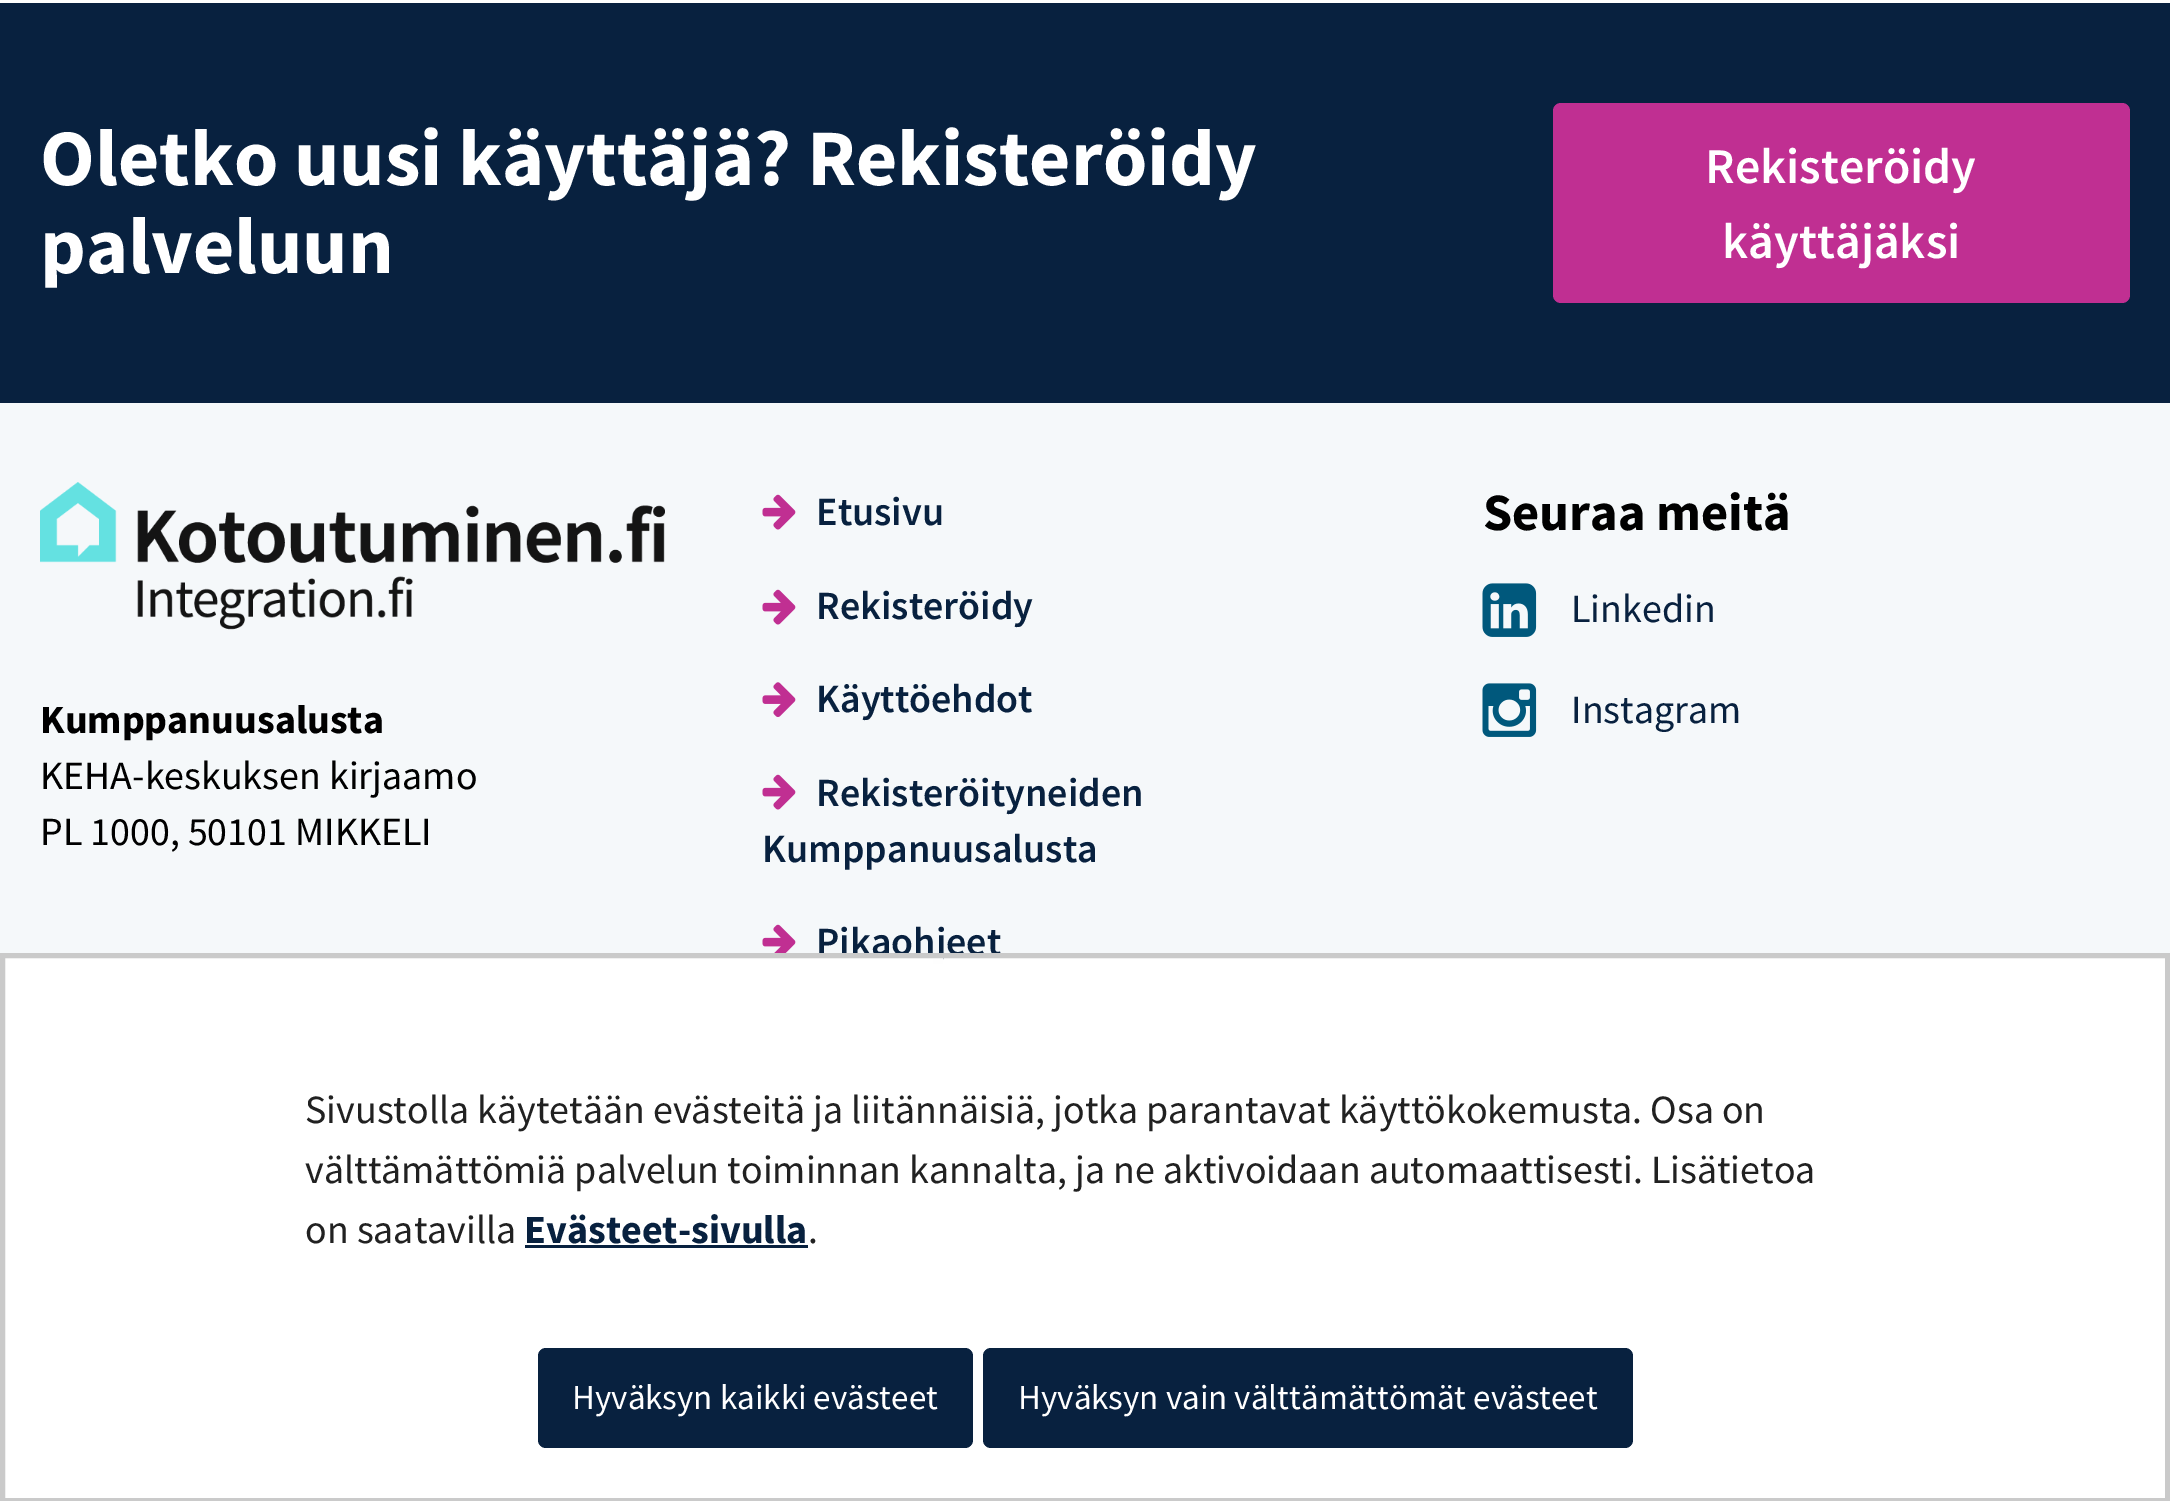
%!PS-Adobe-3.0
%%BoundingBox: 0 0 2170 1501
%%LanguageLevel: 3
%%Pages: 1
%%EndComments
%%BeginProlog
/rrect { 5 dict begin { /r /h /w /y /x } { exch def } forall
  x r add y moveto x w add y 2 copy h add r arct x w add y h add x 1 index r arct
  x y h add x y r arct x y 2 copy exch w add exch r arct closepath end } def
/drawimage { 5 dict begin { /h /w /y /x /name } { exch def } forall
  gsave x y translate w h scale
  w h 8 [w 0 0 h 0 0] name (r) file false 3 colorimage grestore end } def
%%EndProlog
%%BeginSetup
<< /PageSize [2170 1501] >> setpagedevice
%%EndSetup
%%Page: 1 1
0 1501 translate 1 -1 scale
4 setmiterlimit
1 setgray
0 0 2170 1501 rectfill
0.961 0.973 0.98 setrgbcolor
0 403 2170 550 rectfill
0.031 0.129 0.247 setrgbcolor
0 3 2170 400 rectfill
0.753 0.184 0.573 setrgbcolor
1553 103 577 200 8 rrect fill
(images/1.raw) 40 482 625 148 drawimage
(images/2.raw) 762 494 34 36 drawimage
(images/2.raw) 762 589 34 36 drawimage
(images/3.raw) 762 682 34 35 drawimage
(images/2.raw) 762 774 34 36 drawimage
(images/4.raw) 762 924 34 29 drawimage
(images/5.raw) 1482 583 55 54 drawimage
(images/6.raw) 1482 683 55 54 drawimage
/SourceSansPro-Bold [80 0 0 -80 0 0] selectfont
1 setgray
40 185 moveto (Oletko uusi käyttäjä? Rekisteröidy) show
40 273 moveto (palveluun) show
/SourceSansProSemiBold-SemiBold [50 0 0 -50 0 0] selectfont
1705 183 moveto (Rekisteröidy) show
1722 258 moveto (käyttäjäksi) show
/SourceSansPro-Bold [40 0 0 -40 0 0] selectfont
0 setgray
40 733 moveto (Kumppanuusalusta) show
/SourceSansPro-Regular [40 0 0 -40 0 0] selectfont
40 789 moveto (KEHA-keskuksen kirjaamo) show
40 845 moveto (PL 1000, 50101 MIKKELI) show
/SourceSansProSemiBold-SemiBold [40 0 0 -40 0 0] selectfont
0.031 0.129 0.247 setrgbcolor
816 525 moveto (Etusivu) show
816 619 moveto (Rekisteröidy) show
816 712 moveto (Käyttöehdot) show
816 806 moveto (Rekisteröityneiden) show
762 862 moveto (Kumppanuusalusta) show
816 955 moveto (Pikaohjeet) show
/SourceSansPro-Bold [52.5 0 0 -52.5 0 0] selectfont
0 setgray
1483 530 moveto (Seuraa meitä) show
/SourceSansPro-Regular [40 0 0 -40 0 0] selectfont
0.031 0.129 0.247 setrgbcolor
1571 622 moveto (Linkedin) show
1571 723 moveto (Instagram) show
0.996 setgray
933 958 10 6 rectfill
0.792 setgray
5 setlinewidth
2.5 955.5 2165 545 rectstroke
0.129 setgray
305 1123 moveto (Sivustolla käytetään evästeitä ja liitännäisiä, jotka parantavat käyttökokemusta. Osa on) show
305 1183 moveto (välttämättömiä palvelun toiminnan kannalta, ja ne aktivoidaan automaattisesti. Lisätietoa) show
305 1243 moveto (on saatavilla) show
/SourceSansPro-Bold [40 0 0 -40 0 0] selectfont
0.031 0.129 0.247 setrgbcolor
524 1243 moveto (Evästeet-sivulla) show
525 1245 283 3 rectfill
/SourceSansPro-Regular [40 0 0 -40 0 0] selectfont
0.129 setgray
808 1243 moveto (.) show
0.031 0.129 0.247 setrgbcolor
538 1348 435 100 8 rrect fill
/SourceSansPro-Regular [35 0 0 -35 0 0] selectfont
1 setgray
572 1409 moveto (Hyväksyn kaikki evästeet) show
0.031 0.129 0.247 setrgbcolor
983 1348 650 100 8 rrect fill
1 setgray
1018 1409 moveto (Hyväksyn vain välttämättömät evästeet) show
showpage
%%EOF
